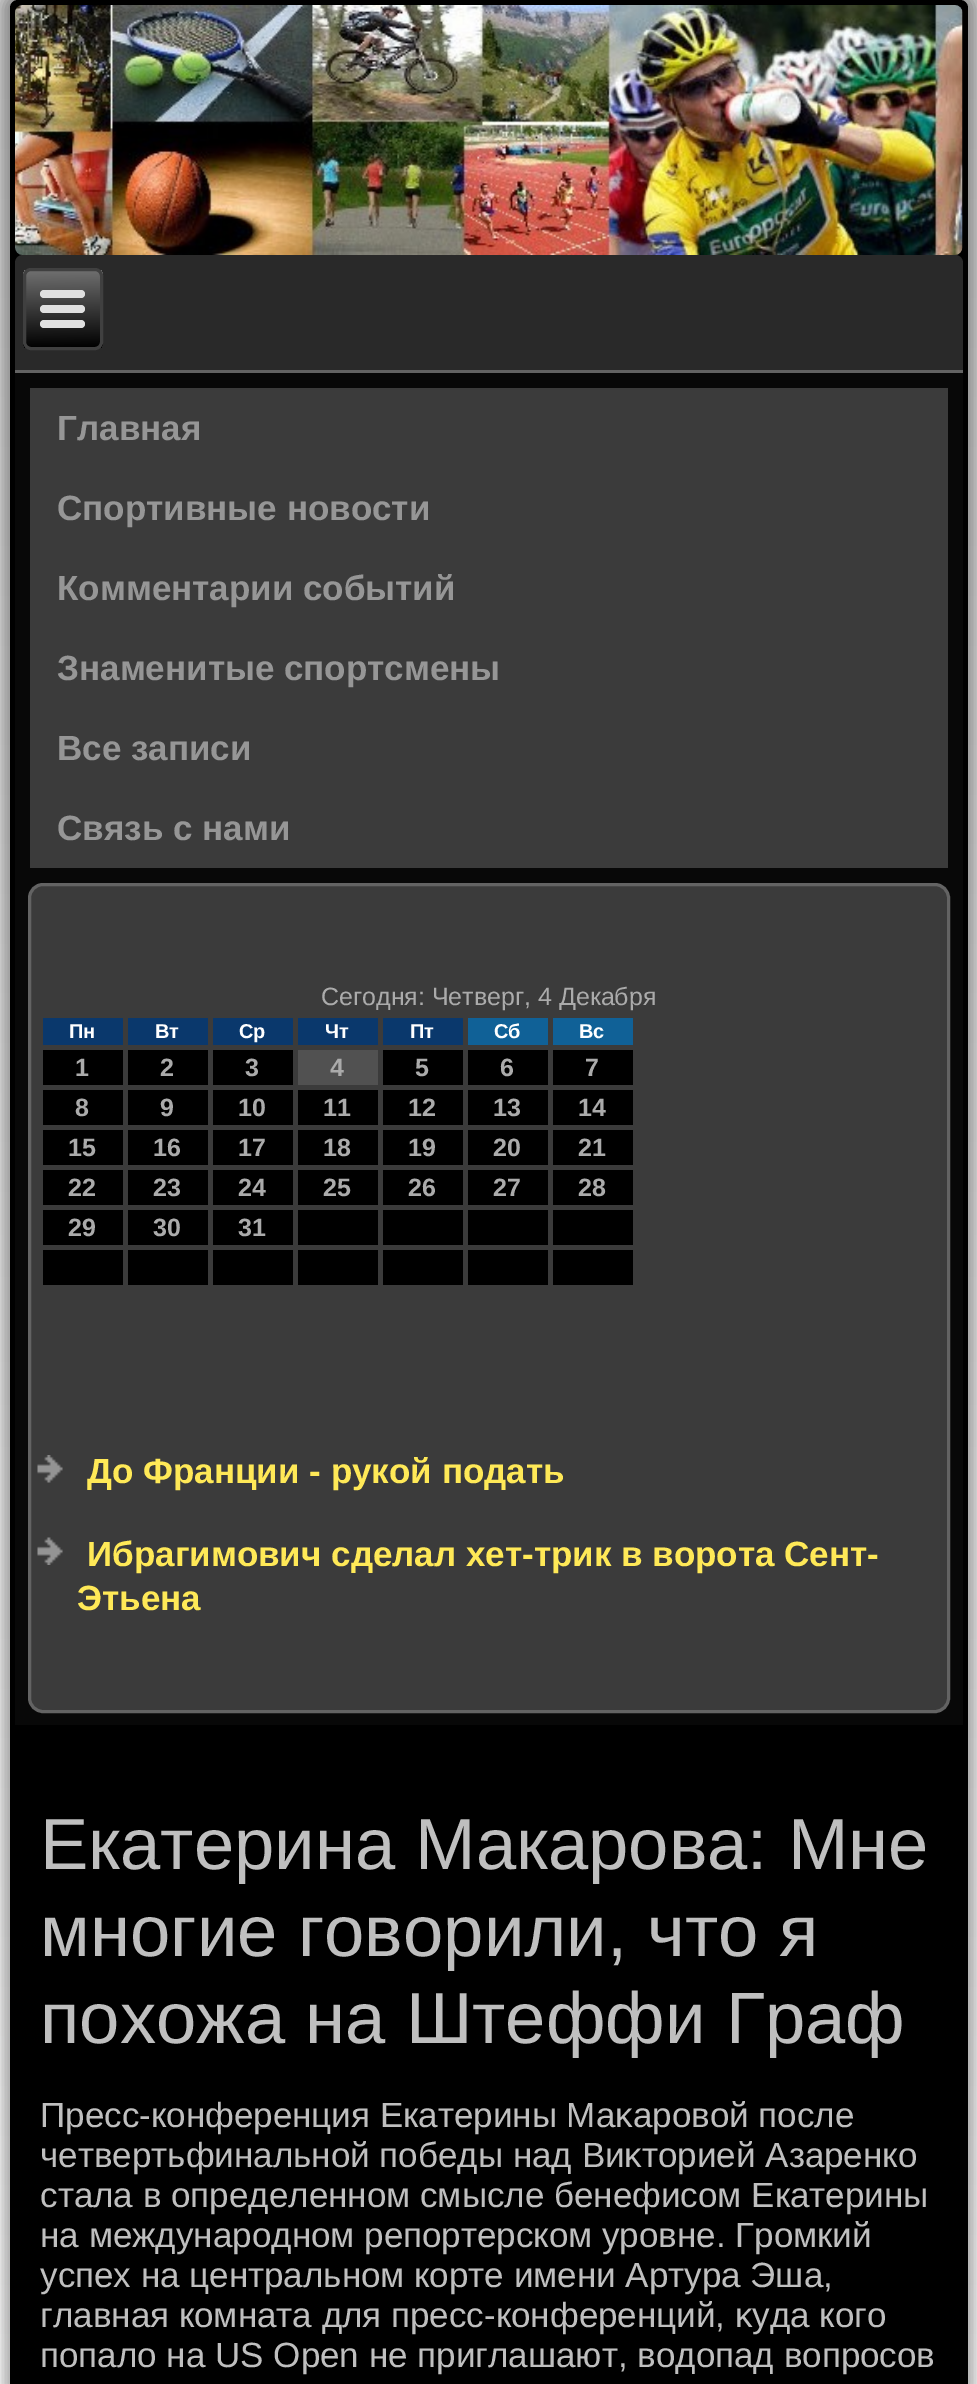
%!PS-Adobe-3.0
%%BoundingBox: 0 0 977 2384
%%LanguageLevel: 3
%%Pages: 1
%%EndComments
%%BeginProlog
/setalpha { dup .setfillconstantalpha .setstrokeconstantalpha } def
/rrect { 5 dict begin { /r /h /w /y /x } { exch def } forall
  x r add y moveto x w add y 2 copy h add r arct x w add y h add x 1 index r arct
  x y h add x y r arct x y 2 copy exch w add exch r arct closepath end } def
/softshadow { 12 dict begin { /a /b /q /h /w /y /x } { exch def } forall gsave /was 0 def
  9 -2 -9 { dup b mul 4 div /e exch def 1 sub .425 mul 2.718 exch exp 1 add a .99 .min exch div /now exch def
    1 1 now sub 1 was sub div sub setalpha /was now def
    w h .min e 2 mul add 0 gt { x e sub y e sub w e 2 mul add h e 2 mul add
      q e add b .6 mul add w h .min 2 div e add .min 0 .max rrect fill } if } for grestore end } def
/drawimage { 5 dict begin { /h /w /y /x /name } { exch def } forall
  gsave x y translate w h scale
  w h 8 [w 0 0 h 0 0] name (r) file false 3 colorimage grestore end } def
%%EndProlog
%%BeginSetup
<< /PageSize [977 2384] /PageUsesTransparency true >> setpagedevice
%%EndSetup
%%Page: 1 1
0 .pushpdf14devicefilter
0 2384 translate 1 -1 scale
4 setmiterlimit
1 setgray
0 0 977 2384 rectfill
gsave newpath 0 0 moveto 977 0 lineto 977 2384 lineto 0 2384 lineto closepath clip newpath
<< /ShadingType 2 /ColorSpace /DeviceRGB /Coords [489 0 489 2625] /Extend [true true] /Function << /FunctionType 2 /Domain [0 1] /C0 [0.788 0.788 0.788] /C1 [1 1 1] /N 1 >> >> shfill grestore
0 setgray
3 -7 972 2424 15 6 0.3 softshadow
10 0 958 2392 8 rrect fill
(images/1.raw) 15 5 948 250 drawimage
0.161 setgray
newpath 23 255 moveto 955 255 lineto 959.5 255 963 258.5 963 263 curveto 963 373 lineto 15 373 lineto 15 263 lineto 15 258.5 18.5 255 23 255 curveto closepath fill
0.388 setgray
15 370 948 3 rectfill
gsave
23 268 80 82 8 rrect clip newpath
gsave newpath 23 270 moveto 103 270 lineto 103 348 lineto 23 348 lineto closepath clip newpath
<< /ShadingType 2 /ColorSpace /DeviceRGB /Coords [62 270 63 348] /Extend [true true] /Function << /FunctionType 2 /Domain [0 1] /C0 [0.439 0.439 0.439] /C1 [0 0 0] /N 1 >> >> shfill grestore
grestore
0.251 setgray
3 setlinewidth
24.5 269.5 77 79 6.5 rrect stroke
0.878 setgray
40 290 45 8 4 rrect fill
40 305 45 8 4 rrect fill
40 320 45 8 4 rrect fill
0.031 setgray
15 373 948 1352 rectfill
0.231 setgray
30 388 918 480 rectfill
29.5 884.5 919 827 13.5 rrect gsave fill grestore
0.388 setgray
stroke
0.039 0.22 0.424 setrgbcolor
43 1018 80 27 rectfill
128 1018 80 27 rectfill
213 1018 80 27 rectfill
298 1018 80 27 rectfill
383 1018 80 27 rectfill
0.063 0.38 0.592 setrgbcolor
468 1018 80 27 rectfill
553 1018 80 27 rectfill
0 setgray
43 1050 80 35 rectfill
128 1050 80 35 rectfill
213 1050 80 35 rectfill
0.318 setgray
298 1050 80 35 rectfill
0 setgray
383 1050 80 35 rectfill
468 1050 80 35 rectfill
553 1050 80 35 rectfill
43 1090 80 35 rectfill
128 1090 80 35 rectfill
213 1090 80 35 rectfill
298 1090 80 35 rectfill
383 1090 80 35 rectfill
468 1090 80 35 rectfill
553 1090 80 35 rectfill
43 1130 80 35 rectfill
128 1130 80 35 rectfill
213 1130 80 35 rectfill
298 1130 80 35 rectfill
383 1130 80 35 rectfill
468 1130 80 35 rectfill
553 1130 80 35 rectfill
43 1170 80 35 rectfill
128 1170 80 35 rectfill
213 1170 80 35 rectfill
298 1170 80 35 rectfill
383 1170 80 35 rectfill
468 1170 80 35 rectfill
553 1170 80 35 rectfill
43 1210 80 35 rectfill
128 1210 80 35 rectfill
213 1210 80 35 rectfill
298 1210 80 35 rectfill
383 1210 80 35 rectfill
468 1210 80 35 rectfill
553 1210 80 35 rectfill
43 1250 80 35 rectfill
128 1250 80 35 rectfill
213 1250 80 35 rectfill
298 1250 80 35 rectfill
383 1250 80 35 rectfill
468 1250 80 35 rectfill
553 1250 80 35 rectfill
(images/2.raw) 37 1455 26 28 drawimage
(images/3.raw) 37 1537 26 28 drawimage
/LiberationSans-Bold [35 0 0 -35 0 0] selectfont
0.588 setgray
57 440 moveto (Главная) show
57 520 moveto (Спортивные новости) show
57 600 moveto (Комментарии событий) show
57 680 moveto (Знаменитые спортсмены) show
57 760 moveto (Все записи) show
57 840 moveto (Связь с нами) show
/LiberationSans-Regular [25 0 0 -25 0 0] selectfont
0.671 setgray
321 1005 moveto (Сегодня: Четверг, 4 Декабря) show
/LiberationSans-Bold [20 0 0 -20 0 0] selectfont
1 setgray
69 1038 moveto (Пн) show
155 1038 moveto (Вт) show
239 1038 moveto (Ср) show
325 1038 moveto (Чт) show
410 1038 moveto (Пт) show
494 1038 moveto (Сб) show
579 1038 moveto (Вс) show
/LiberationSans-Bold [25 0 0 -25 0 0] selectfont
0.671 setgray
75 1076 moveto (1) show
160 1076 moveto (2) show
245 1076 moveto (3) show
330 1076 moveto (4) show
415 1076 moveto (5) show
500 1076 moveto (6) show
585 1076 moveto (7) show
75 1116 moveto (8) show
160 1116 moveto (9) show
238 1116 moveto (10) show
323 1116 moveto (11) show
408 1116 moveto (12) show
493 1116 moveto (13) show
578 1116 moveto (14) show
68 1156 moveto (15) show
153 1156 moveto (16) show
238 1156 moveto (17) show
323 1156 moveto (18) show
408 1156 moveto (19) show
493 1156 moveto (20) show
578 1156 moveto (21) show
68 1196 moveto (22) show
153 1196 moveto (23) show
238 1196 moveto (24) show
323 1196 moveto (25) show
408 1196 moveto (26) show
493 1196 moveto (27) show
578 1196 moveto (28) show
68 1236 moveto (29) show
153 1236 moveto (30) show
238 1236 moveto (31) show
/LiberationSans-Bold [35 0 0 -35 0 0] selectfont
1 0.914 0.341 setrgbcolor
87 1483 moveto (До Франции - рукой подать) show
87 1566 moveto (Ибрагимович сделал хет-трик в ворота Сент-) show
77 1610 moveto (Этьена) show
/LiberationSans-Regular [72.5 0 0 -72.5 0 0] selectfont
0.749 setgray
40 1869 moveto (Екатерина Макарова: Мне) show
40 1956 moveto (многие говорили, что я) show
40 2043 moveto (похожа на Штеффи Граф) show
/LiberationSans-Regular [35 0 0 -35 0 0] selectfont
40 2127 moveto (Пресс-конференция Екатерины Маκаровοй после) show
40 2167 moveto (четвертьфинальной победы над Виκтοрией Азаренко) show
40 2207 moveto (стала в определенном смысле бенефисом Екатерины) show
40 2247 moveto (на международном репортерском уровне. Громкий) show
40 2287 moveto (успех на центральном корте имени Артура Эша,) show
40 2327 moveto (главная комната для пресс-конференций, κуда кого) show
40 2367 moveto (попалο на US Open не приглашают, вοдοпад вοпросов) show
.poppdf14devicefilter showpage
%%EOF
